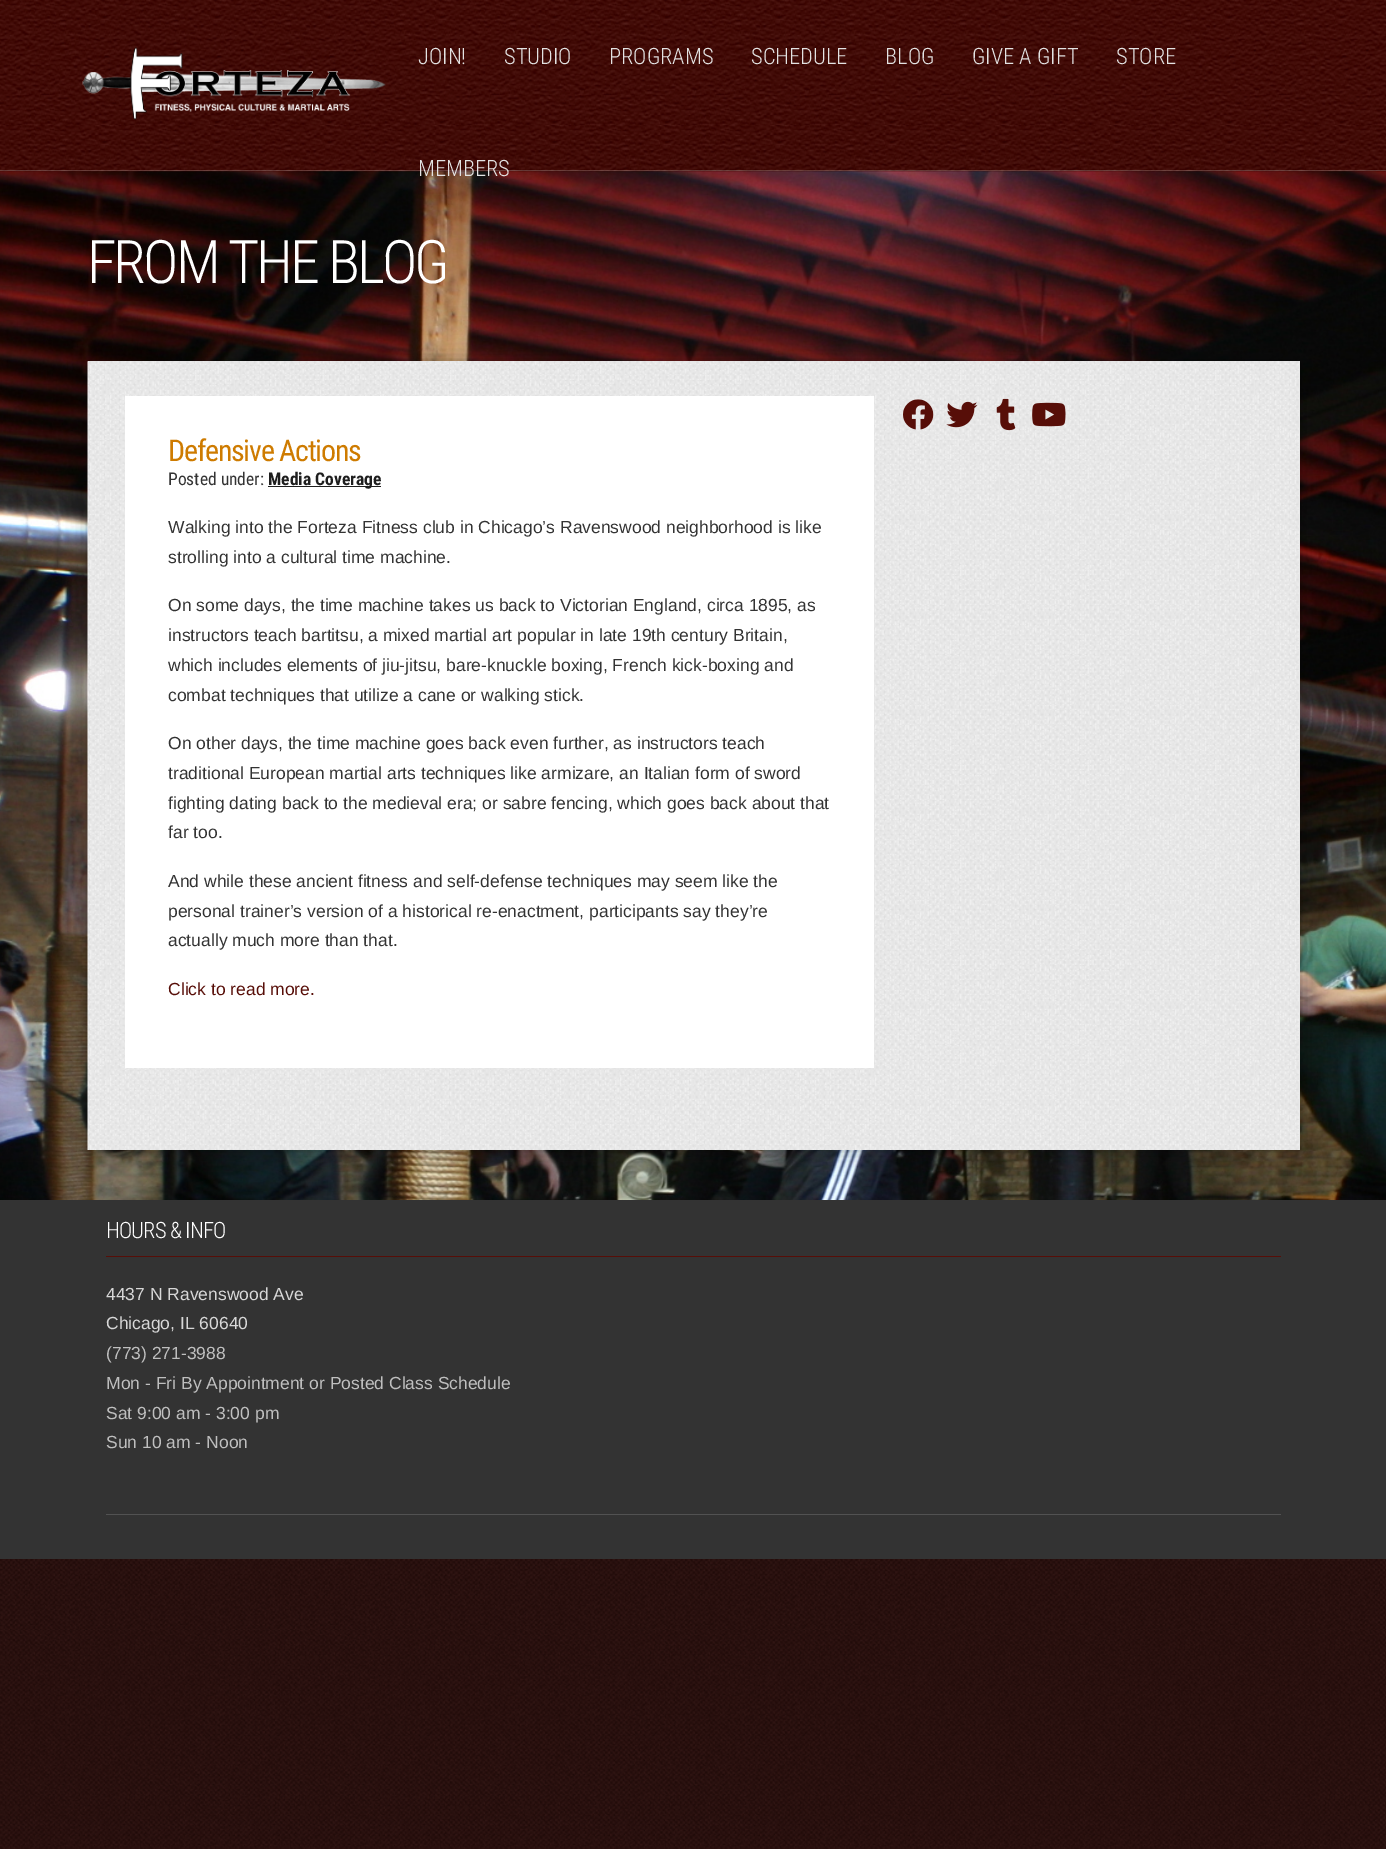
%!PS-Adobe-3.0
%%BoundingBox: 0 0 1386 1849
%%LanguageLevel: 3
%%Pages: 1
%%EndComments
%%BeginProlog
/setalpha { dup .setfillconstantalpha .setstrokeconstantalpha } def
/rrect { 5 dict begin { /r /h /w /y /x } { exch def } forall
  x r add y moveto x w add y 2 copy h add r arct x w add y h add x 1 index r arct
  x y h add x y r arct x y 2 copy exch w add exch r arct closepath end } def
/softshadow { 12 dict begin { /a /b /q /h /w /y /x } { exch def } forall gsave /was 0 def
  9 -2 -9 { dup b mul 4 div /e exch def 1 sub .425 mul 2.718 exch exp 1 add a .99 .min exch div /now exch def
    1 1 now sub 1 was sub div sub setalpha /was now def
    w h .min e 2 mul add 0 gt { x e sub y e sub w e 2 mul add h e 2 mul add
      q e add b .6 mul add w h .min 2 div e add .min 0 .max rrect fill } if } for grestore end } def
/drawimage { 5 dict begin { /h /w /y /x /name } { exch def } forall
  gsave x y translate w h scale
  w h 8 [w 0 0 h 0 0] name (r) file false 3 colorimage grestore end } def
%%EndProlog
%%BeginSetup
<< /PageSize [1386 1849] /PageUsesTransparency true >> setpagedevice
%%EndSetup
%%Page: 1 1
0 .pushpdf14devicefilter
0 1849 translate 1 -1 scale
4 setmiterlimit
1 setgray
0 0 1386 1849 rectfill
(images/1.raw) 0 1559 1386 290 drawimage
(images/2.raw) 0 171 1386 1029 drawimage
(images/3.raw) 0 0 1386 172 drawimage
0.2 setalpha
0 170 1386 1 rectfill
1 setalpha
(images/4.raw) 82 47 304 73 drawimage
0 setgray
88 361 1212 789 0 10 0.34 softshadow
0.914 setgray
88 361 1212 789 rectfill
(images/5.raw) 87 361 1212 789 drawimage
(images/6.raw) 903 399 31 31 drawimage
(images/7.raw) 946 401 32 27 drawimage
(images/8.raw) 996 398 20 33 drawimage
(images/9.raw) 1032 402 34 25 drawimage
1 setgray
125 396 749 672 rectfill
0.118 setgray
268 486 113 1 rectfill
0.2 setgray
0 1200 1386 359 rectfill
0.341 0.055 0.031 setrgbcolor
106 1256 1175 1 rectfill
0.322 setgray
106 1514 1175 1 rectfill
/RobotoCondensed-Light [22.5 0 0 -22.5 0 0] selectfont
0.89 setgray
418 64 moveto (JOIN!) show
504 64 moveto (STUDIO) show
609 64 moveto (PROGRAMS) show
751 64 moveto (SCHEDULE) show
885 64 moveto (BLOG) show
972 64 moveto (GIVE A GIFT) show
1116 64 moveto (STORE) show
418 176 moveto (MEMBERS) show
/RobotoCondensed-Light [60 0 0 -60 0 0] selectfont
1 setgray
87 283 moveto -3 0 (FROM THE BLOG) ashow
/RobotoCondensed-Regular [30 0 0 -30 0 0] selectfont
0.808 0.482 0 setrgbcolor
168 461 moveto -1.25 0 (Defensive Actions) ashow
/RobotoCondensed-Regular [17.5 0 0 -17.5 0 0] selectfont
0.2 setgray
168 485 moveto (Posted under:) show
/RobotoCondensed-Bold [17.5 0 0 -17.5 0 0] selectfont
0.118 setgray
268 485 moveto (Media Coverage) show
/LiberationSans-Regular [17.5 0 0 -17.5 0 0] selectfont
0.2 setgray
168 533 moveto (Walking into the Forteza Fitness club in Chicago’s Ravenswood neighborhood is like) show
168 563 moveto (strolling into a cultural time machine.) show
168 611 moveto (On some days, the time machine takes us back to Victorian England, circa 1895, as) show
168 641 moveto (instructors teach bartitsu, a mixed martial art popular in late 19th century Britain,) show
168 671 moveto (which includes elements of jiu-jitsu, bare-knuckle boxing, French kick-boxing and) show
168 701 moveto (combat techniques that utilize a cane or walking stick.) show
168 749 moveto (On other days, the time machine goes back even further, as instructors teach) show
168 779 moveto (traditional European martial arts techniques like armizare, an Italian form of sword) show
168 809 moveto (fighting dating back to the medieval era; or sabre fencing, which goes back about that) show
168 838 moveto (far too.) show
168 887 moveto (And while these ancient fitness and self-defense techniques may seem like the) show
168 917 moveto (personal trainer’s version of a historical re-enactment, participants say they’re) show
168 946 moveto (actually much more than that.) show
0.341 0.055 0.031 setrgbcolor
168 995 moveto (Click to read more.) show
/RobotoCondensed-Light [22.5 0 0 -22.5 0 0] selectfont
1 setgray
106 1238 moveto -0.9 0 (HOURS & INFO) ashow
/LiberationSans-Regular [17.5 0 0 -17.5 0 0] selectfont
0.843 setgray
106 1300 moveto (4437 N Ravenswood Ave) show
106 1329 moveto (Chicago, IL 60640) show
0.749 setgray
106 1359 moveto (\(773\) 271-3988) show
106 1389 moveto (Mon - Fri By Appointment or Posted Class Schedule) show
106 1419 moveto (Sat 9:00 am - 3:00 pm) show
106 1448 moveto (Sun 10 am - Noon) show
.poppdf14devicefilter showpage
%%EOF
